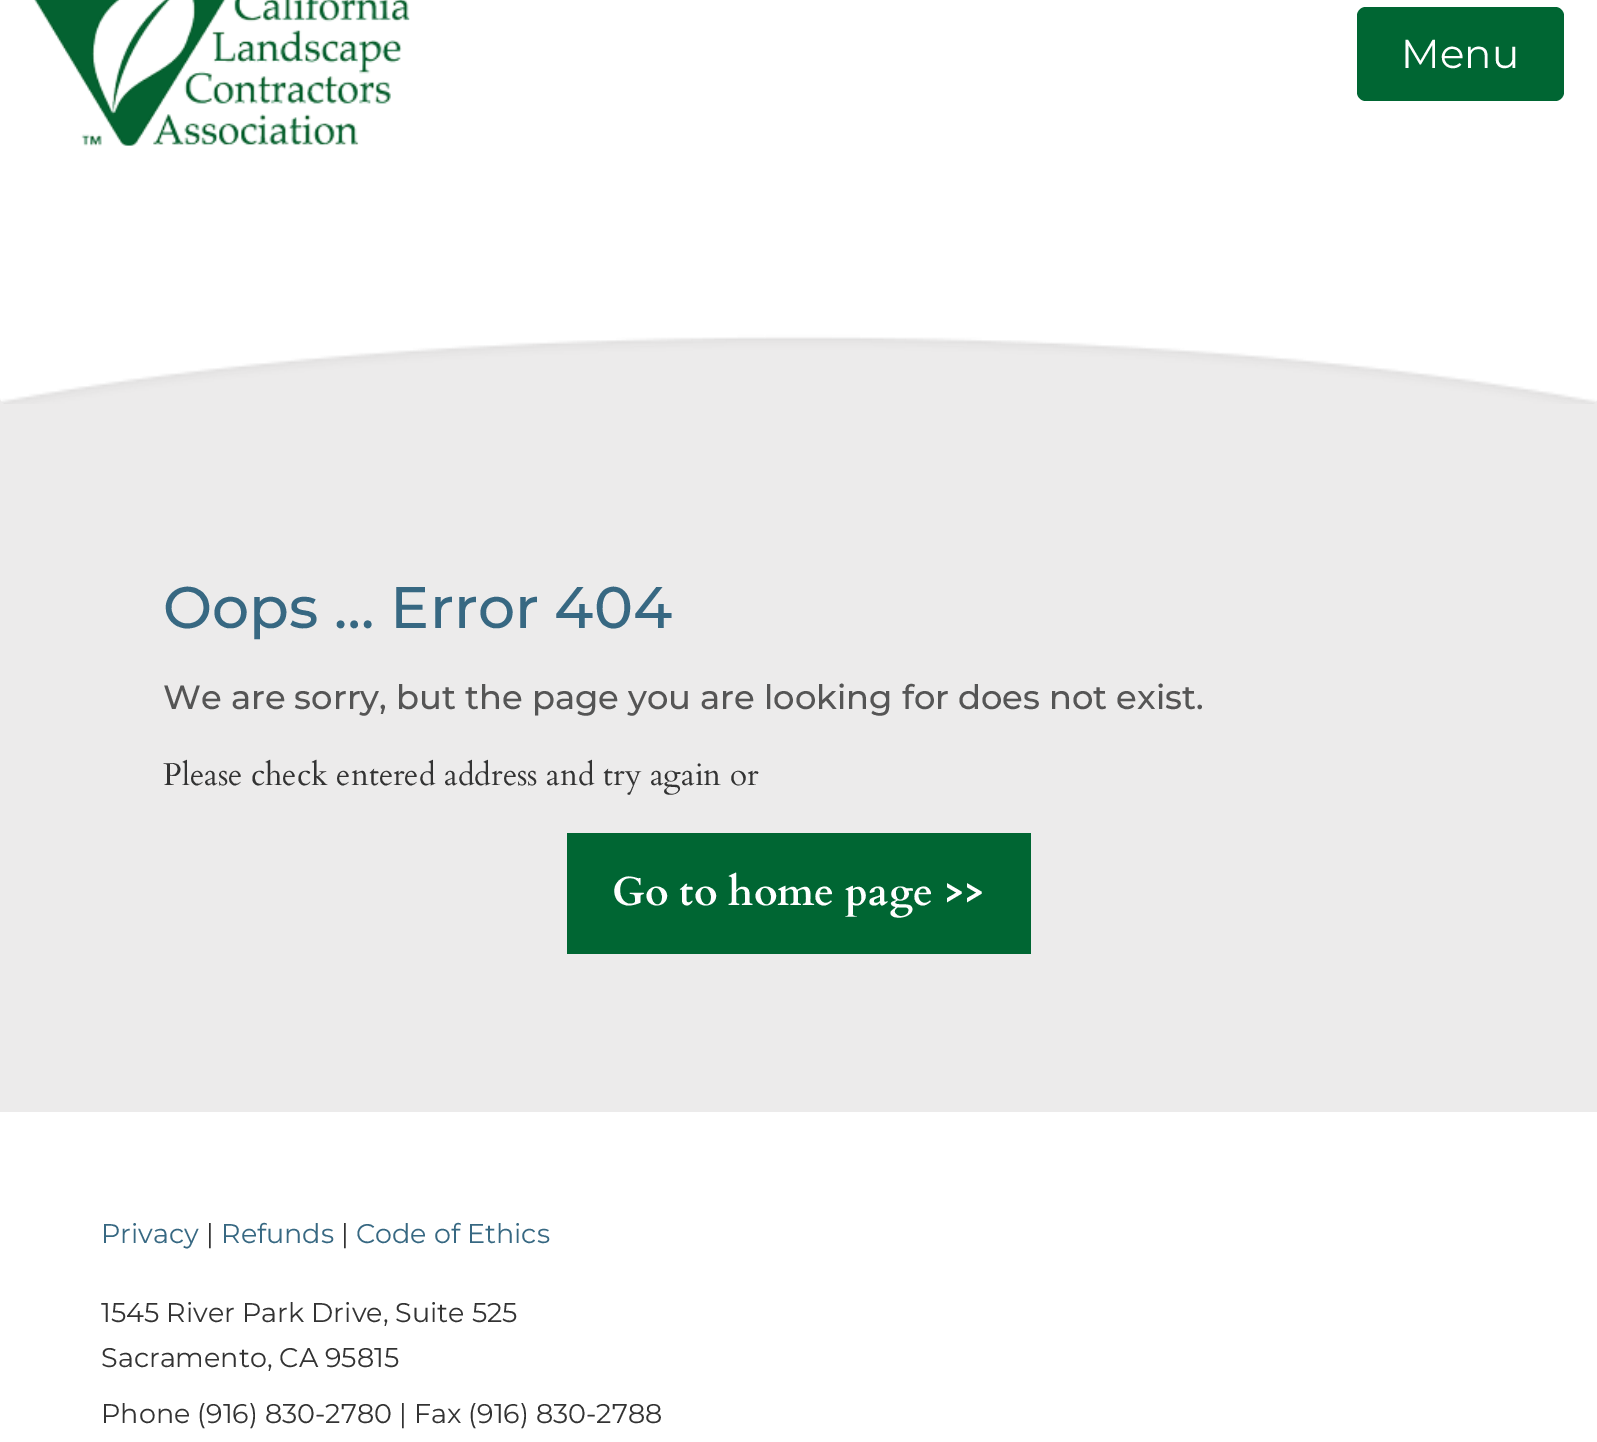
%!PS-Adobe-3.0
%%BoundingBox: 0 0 1597 1442
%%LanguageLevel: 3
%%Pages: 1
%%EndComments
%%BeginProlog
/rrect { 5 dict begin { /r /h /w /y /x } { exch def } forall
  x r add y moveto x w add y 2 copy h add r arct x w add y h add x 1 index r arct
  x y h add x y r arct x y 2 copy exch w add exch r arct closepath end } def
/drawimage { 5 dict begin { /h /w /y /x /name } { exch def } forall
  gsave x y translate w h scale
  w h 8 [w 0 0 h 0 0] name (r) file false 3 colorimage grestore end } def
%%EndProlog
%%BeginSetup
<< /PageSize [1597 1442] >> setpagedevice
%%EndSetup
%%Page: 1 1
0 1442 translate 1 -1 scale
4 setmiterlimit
0.925 0.922 0.922 setrgbcolor
0 0 1597 1442 rectfill
1 setgray
0 0 1597 115 rectfill
(images/2.raw) 0 115 1597 289 drawimage
(images/1.raw) 34 0 376 146 drawimage
0 0.4 0.2 setrgbcolor
1357 7 207 94 9 rrect fill
567 833 464 121 rectfill
1 setgray
0 1112 1597 330 rectfill
/Montserrat-Regular [40.5 0 0 -40.5 0 0] selectfont
1401 68 moveto (Menu) show
/Montserrat-Medium [58.5 0 0 -58.5 0 0] selectfont
0.216 0.408 0.51 setrgbcolor
163 628 moveto (Oops … Error 404) show
/Montserrat-Medium [33.75 0 0 -33.75 0 0] selectfont
0.333 setgray
163 709 moveto (We are sorry, but the page you are looking for does not exist.) show
/Cardo-Regular [31.5 0 0 -31.5 0 0] selectfont
0.2 setgray
163 785 moveto (Please check entered address and try again or) show
/Cardo-Bold [40.5 0 0 -40.5 0 0] selectfont
1 setgray
612 905 moveto (Go to home page >>) show
/Montserrat-Regular [27 0 0 -27 0 0] selectfont
0.216 0.408 0.51 setrgbcolor
101 1243 moveto (Privacy) show
0.2 setgray
206 1243 moveto (|) show
0.216 0.408 0.51 setrgbcolor
221 1243 moveto (Refunds) show
0.2 setgray
341 1243 moveto (|) show
0.216 0.408 0.51 setrgbcolor
356 1243 moveto (Code of Ethics) show
0.2 setgray
101 1322 moveto (1545 River Park Drive, Suite 525) show
101 1367 moveto (Sacramento, CA 95815) show
101 1423 moveto (Phone \(916\) 830-2780 | Fax \(916\) 830-2788) show
showpage
%%EOF
